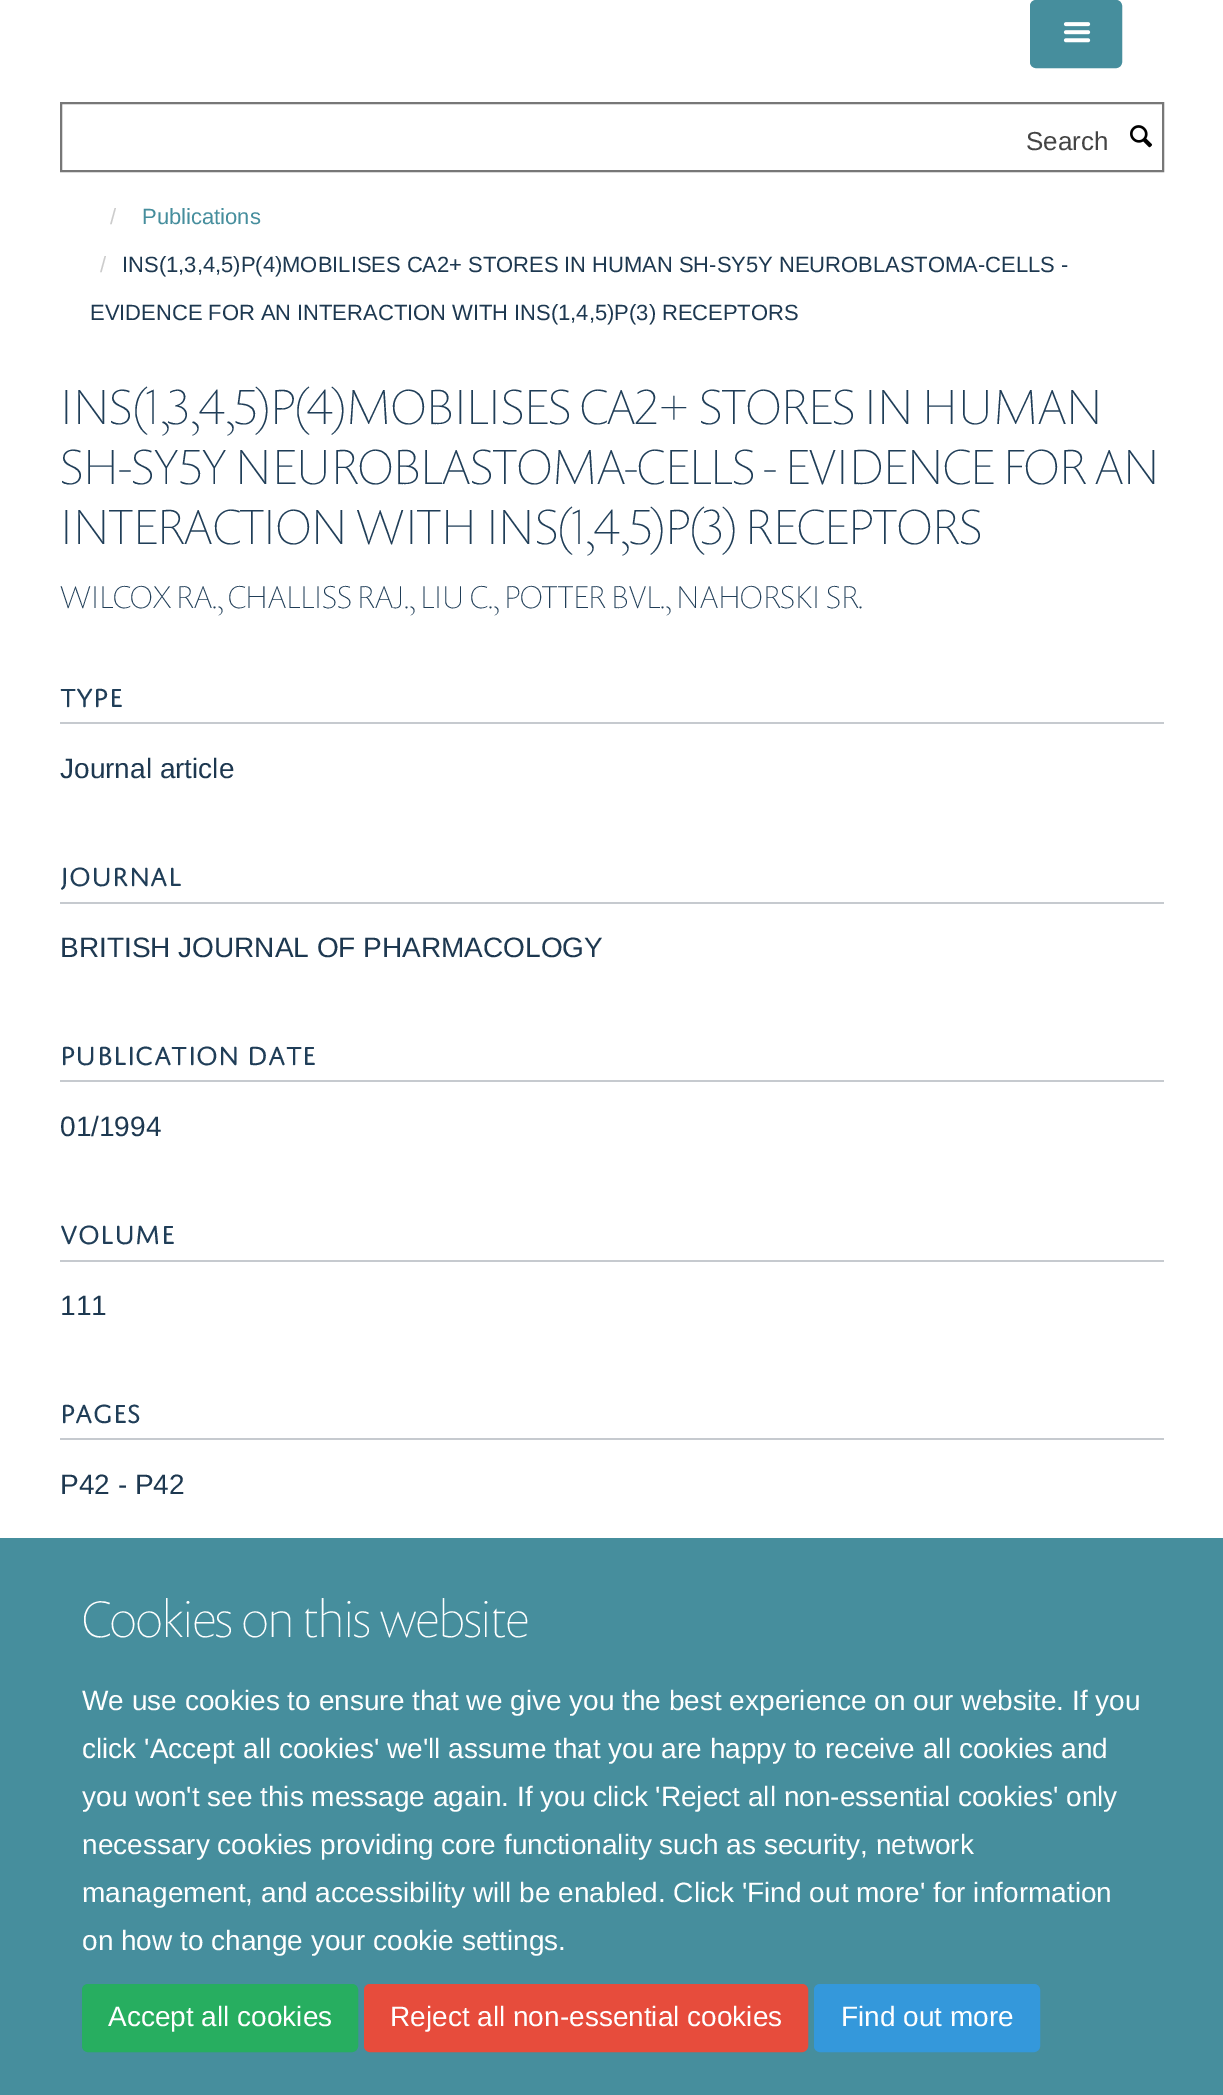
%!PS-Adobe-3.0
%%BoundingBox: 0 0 1223 2095
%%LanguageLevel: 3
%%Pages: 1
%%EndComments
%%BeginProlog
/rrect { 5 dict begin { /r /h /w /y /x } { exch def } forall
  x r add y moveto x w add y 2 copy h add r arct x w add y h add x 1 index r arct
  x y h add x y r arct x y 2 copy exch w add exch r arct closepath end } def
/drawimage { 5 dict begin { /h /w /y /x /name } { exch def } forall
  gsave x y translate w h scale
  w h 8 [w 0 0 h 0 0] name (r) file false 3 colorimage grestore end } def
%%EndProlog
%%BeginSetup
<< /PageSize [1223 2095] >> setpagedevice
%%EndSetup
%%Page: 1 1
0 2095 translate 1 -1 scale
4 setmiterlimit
1 setgray
0 0 1223 2095 rectfill
0.275 0.557 0.616 setrgbcolor
1031 1 90 66 5 rrect gsave fill grestore
2 setlinewidth
stroke
(images/1.raw) 1063 22 28 21 drawimage
0.467 setgray
61 103 1102 68 rectstroke
(images/2.raw) 1130 125 23 23 drawimage
0.776 0.792 0.812 setrgbcolor
60 722 1104 2 rectfill
60 902 1104 2 rectfill
60 1080 1104 2 rectfill
60 1260 1104 2 rectfill
60 1438 1104 2 rectfill
0.275 0.557 0.616 setrgbcolor
0 1538 1223 557 rectfill
0.153 0.682 0.376 setrgbcolor
83 1985 274 66 5 rrect gsave fill grestore
stroke
0.906 0.298 0.235 setrgbcolor
365 1985 442 66 5 rrect gsave fill grestore
stroke
0.204 0.596 0.859 setrgbcolor
815 1985 224 66 5 rrect gsave fill grestore
stroke
/LiberationSans-Regular [26 0 0 -26 0 0] selectfont
0.267 setgray
1026 150 moveto (Search) show
/LiberationSans-Regular [22 0 0 -22 0 0] selectfont
0.8 setgray
110 224 moveto (/) show
0.275 0.557 0.616 setrgbcolor
142 224 moveto (Publications) show
0.8 setgray
100 272 moveto (/) show
0.114 0.22 0.314 setrgbcolor
122 272 moveto -0.25 0 32 (INS\(1,3,4,5\)P\(4\)MOBILISES CA2+ STORES IN HUMAN SH-SY5Y NEUROBLASTOMA-CELLS -) widthshow
90 320 moveto -0.25 0 32 (EVIDENCE FOR AN INTERACTION WITH INS\(1,4,5\)P\(3\) RECEPTORS) widthshow
/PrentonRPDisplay-Thin [50 0 0 -50 0 0] selectfont
0.125 0.243 0.345 setrgbcolor
60 424 moveto (INS\(1,3,4,5\)P\(4\)MOBILISES CA2+ STORES IN HUMAN) show
60 484 moveto (SH-SY5Y NEUROBLASTOMA-CELLS - EVIDENCE FOR AN) show
60 544 moveto (INTERACTION WITH INS\(1,4,5\)P\(3\) RECEPTORS) show
/PrentonRPDisplay-Thin [32 0 0 -32 0 0] selectfont
60 608 moveto (WILCOX RA., CHALLISS RAJ., LIU C., POTTER BVL., NAHORSKI SR.) show
/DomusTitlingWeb-Regular [28 0 0 -28 0 0] selectfont
60 707 moveto (TYPE) show
/LiberationSans-Regular [28 0 0 -28 0 0] selectfont
0.114 0.22 0.314 setrgbcolor
60 778 moveto (Journal article) show
/DomusTitlingWeb-Regular [28 0 0 -28 0 0] selectfont
0.125 0.243 0.345 setrgbcolor
60 886 moveto (JOURNAL) show
/LiberationSans-Regular [28 0 0 -28 0 0] selectfont
0.114 0.22 0.314 setrgbcolor
60 957 moveto (BRITISH JOURNAL OF PHARMACOLOGY) show
/DomusTitlingWeb-Regular [28 0 0 -28 0 0] selectfont
0.125 0.243 0.345 setrgbcolor
60 1065 moveto (PUBLICATION DATE) show
/LiberationSans-Regular [28 0 0 -28 0 0] selectfont
0.114 0.22 0.314 setrgbcolor
60 1136 moveto (01/1994) show
/DomusTitlingWeb-Regular [28 0 0 -28 0 0] selectfont
0.125 0.243 0.345 setrgbcolor
60 1244 moveto (VOLUME) show
/LiberationSans-Regular [28 0 0 -28 0 0] selectfont
0.114 0.22 0.314 setrgbcolor
60 1315 moveto (111) show
/DomusTitlingWeb-Regular [28 0 0 -28 0 0] selectfont
0.125 0.243 0.345 setrgbcolor
60 1423 moveto (PAGES) show
/LiberationSans-Regular [28 0 0 -28 0 0] selectfont
0.114 0.22 0.314 setrgbcolor
60 1494 moveto (P42 - P42) show
/PrentonRPDisplay-Thin [52 0 0 -52 0 0] selectfont
1 setgray
82 1637 moveto (Cookies on this website) show
/LiberationSans-Regular [28 0 0 -28 0 0] selectfont
82 1710 moveto (We use cookies to ensure that we give you the best experience on our website. If you) show
82 1758 moveto (click 'Accept all cookies' we'll assume that you are happy to receive all cookies and) show
82 1806 moveto (you won't see this message again. If you click 'Reject all non-essential cookies' only) show
82 1854 moveto (necessary cookies providing core functionality such as security, network) show
82 1902 moveto (management, and accessibility will be enabled. Click 'Find out more' for information) show
82 1950 moveto (on how to change your cookie settings.) show
108 2026 moveto (Accept all cookies) show
390 2026 moveto (Reject all non-essential cookies) show
841 2026 moveto (Find out more) show
showpage
%%EOF
